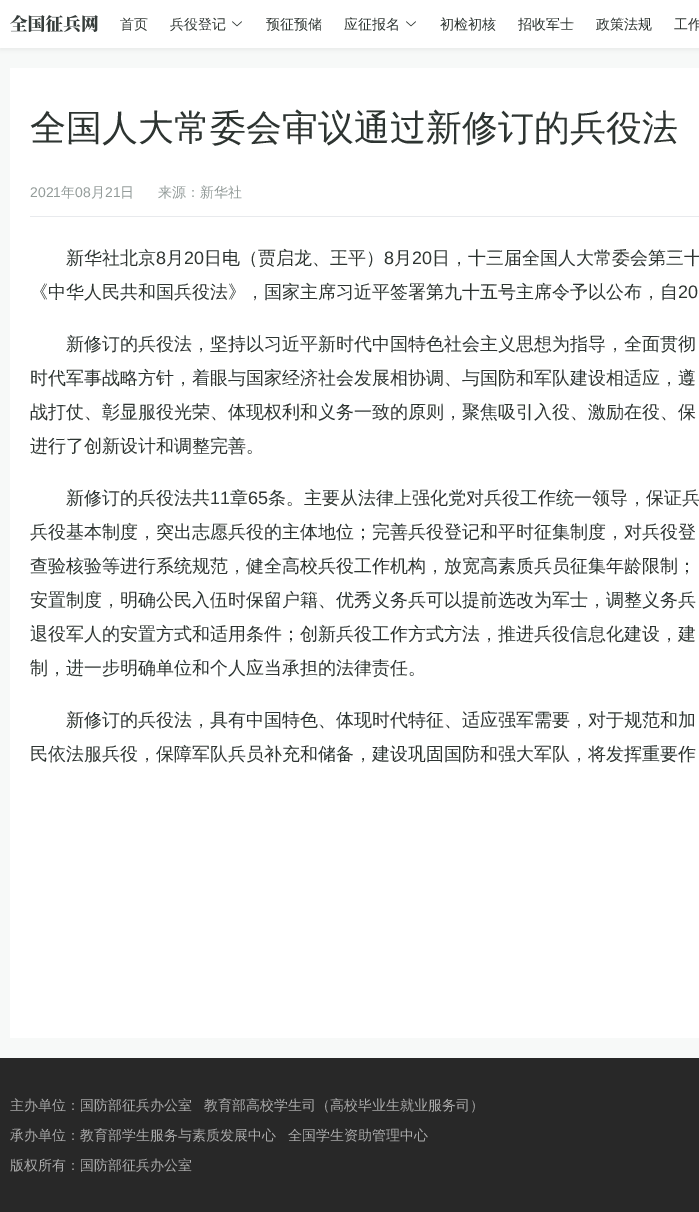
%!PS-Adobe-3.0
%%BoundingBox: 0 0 699 1212
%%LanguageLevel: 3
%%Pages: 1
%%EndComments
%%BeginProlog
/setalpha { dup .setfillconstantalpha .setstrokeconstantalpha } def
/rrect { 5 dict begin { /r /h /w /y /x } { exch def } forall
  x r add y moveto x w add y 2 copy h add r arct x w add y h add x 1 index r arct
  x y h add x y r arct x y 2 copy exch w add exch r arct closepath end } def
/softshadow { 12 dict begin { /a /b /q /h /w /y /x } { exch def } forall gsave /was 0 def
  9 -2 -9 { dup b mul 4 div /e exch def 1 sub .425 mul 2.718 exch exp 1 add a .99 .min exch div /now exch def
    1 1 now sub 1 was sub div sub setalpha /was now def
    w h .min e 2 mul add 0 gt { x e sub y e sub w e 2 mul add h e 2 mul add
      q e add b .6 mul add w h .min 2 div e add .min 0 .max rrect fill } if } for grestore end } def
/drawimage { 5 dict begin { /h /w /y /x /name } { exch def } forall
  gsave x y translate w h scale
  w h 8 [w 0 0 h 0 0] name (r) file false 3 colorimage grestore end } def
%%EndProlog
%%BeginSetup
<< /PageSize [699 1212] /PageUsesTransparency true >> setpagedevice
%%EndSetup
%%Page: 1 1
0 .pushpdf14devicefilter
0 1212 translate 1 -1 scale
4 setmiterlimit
0.969 0.976 0.973 setrgbcolor
0 0 699 1212 rectfill
0 setgray
0 2 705 48 0 2 0.05 softshadow
1 setgray
0 0 699 48 rectfill
(images/1.raw) 10 15 88 17 drawimage
(images/2.raw) 232 21 10 6 drawimage
(images/2.raw) 406 21 10 6 drawimage
10 68 689 970 rectfill
0.91 0.918 0.929 setrgbcolor
30 216 669 1 rectfill
0.157 setgray
0 1058 699 154 rectfill
/WenQuanYiZenHei-Medium [14 0 0 -14 0 0] selectfont
0.176 0.204 0.192 setrgbcolor
120 29 moveto (首页) show
170 29 moveto (兵役登记) show
266 29 moveto (预征预储) show
344 29 moveto (应征报名) show
440 29 moveto (初检初核) show
518 29 moveto (招收军士) show
596 29 moveto (政策法规) show
674 29 moveto (工作) show
/WenQuanYiZenHei-Medium [36 0 0 -36 0 0] selectfont
30 140 moveto (全国人大常委会审议通过新修订的兵役法) show
/LiberationSans-Regular [14 0 0 -14 0 0] selectfont
0.576 0.608 0.6 setrgbcolor
30 197 moveto (2021) show
/WenQuanYiZenHei-Medium [14 0 0 -14 0 0] selectfont
61 197 moveto (年) show
/LiberationSans-Regular [14 0 0 -14 0 0] selectfont
75 197 moveto (08) show
/WenQuanYiZenHei-Medium [14 0 0 -14 0 0] selectfont
91 197 moveto (月) show
/LiberationSans-Regular [14 0 0 -14 0 0] selectfont
105 197 moveto (21) show
/WenQuanYiZenHei-Medium [14 0 0 -14 0 0] selectfont
120 197 moveto (日) show
158 197 moveto (来源：新华社) show
/WenQuanYiZenHei-Medium [18 0 0 -18 0 0] selectfont
0.176 0.204 0.192 setrgbcolor
66 264 moveto (新华社北京) show
/LiberationSans-Regular [18 0 0 -18 0 0] selectfont
156 264 moveto (8) show
/WenQuanYiZenHei-Medium [18 0 0 -18 0 0] selectfont
166 264 moveto (月) show
/LiberationSans-Regular [18 0 0 -18 0 0] selectfont
184 264 moveto (20) show
/WenQuanYiZenHei-Medium [18 0 0 -18 0 0] selectfont
204 264 moveto (日电（贾启龙、王平）) show
/LiberationSans-Regular [18 0 0 -18 0 0] selectfont
384 264 moveto (8) show
/WenQuanYiZenHei-Medium [18 0 0 -18 0 0] selectfont
394 264 moveto (月) show
/LiberationSans-Regular [18 0 0 -18 0 0] selectfont
412 264 moveto (20) show
/WenQuanYiZenHei-Medium [18 0 0 -18 0 0] selectfont
432 264 moveto (日，十三届全国人大常委会第三十) show
30 298 moveto (《中华人民共和国兵役法》，国家主席习近平签署第九十五号主席令予以公布，自) show
/LiberationSans-Regular [18 0 0 -18 0 0] selectfont
678 298 moveto (20) show
/WenQuanYiZenHei-Medium [18 0 0 -18 0 0] selectfont
66 350 moveto (新修订的兵役法，坚持以习近平新时代中国特色社会主义思想为指导，全面贯彻) show
30 384 moveto (时代军事战略方针，着眼与国家经济社会发展相协调、与国防和军队建设相适应，遵) show
30 418 moveto (战打仗、彰显服役光荣、体现权利和义务一致的原则，聚焦吸引入役、激励在役、保) show
30 452 moveto (进行了创新设计和调整完善。) show
66 504 moveto (新修订的兵役法共) show
/LiberationSans-Regular [18 0 0 -18 0 0] selectfont
210 504 moveto (11) show
/WenQuanYiZenHei-Medium [18 0 0 -18 0 0] selectfont
230 504 moveto (章) show
/LiberationSans-Regular [18 0 0 -18 0 0] selectfont
248 504 moveto (65) show
/WenQuanYiZenHei-Medium [18 0 0 -18 0 0] selectfont
268 504 moveto (条。主要从法律上强化党对兵役工作统一领导，保证兵) show
30 538 moveto (兵役基本制度，突出志愿兵役的主体地位；完善兵役登记和平时征集制度，对兵役登) show
30 572 moveto (查验核验等进行系统规范，健全高校兵役工作机构，放宽高素质兵员征集年龄限制；) show
30 606 moveto (安置制度，明确公民入伍时保留户籍、优秀义务兵可以提前选改为军士，调整义务兵) show
30 640 moveto (退役军人的安置方式和适用条件；创新兵役工作方式方法，推进兵役信息化建设，建) show
30 674 moveto (制，进一步明确单位和个人应当承担的法律责任。) show
66 726 moveto (新修订的兵役法，具有中国特色、体现时代特征、适应强军需要，对于规范和加) show
30 760 moveto (民依法服兵役，保障军队兵员补充和储备，建设巩固国防和强大军队，将发挥重要作) show
/WenQuanYiZenHei-Medium [14 0 0 -14 0 0] selectfont
0.671 setgray
10 1110 moveto (主办单位：国防部征兵办公室) show
204 1110 moveto (教育部高校学生司（高校毕业生就业服务司）) show
10 1140 moveto (承办单位：教育部学生服务与素质发展中心) show
288 1140 moveto (全国学生资助管理中心) show
10 1170 moveto (版权所有：国防部征兵办公室) show
.poppdf14devicefilter showpage
%%EOF
